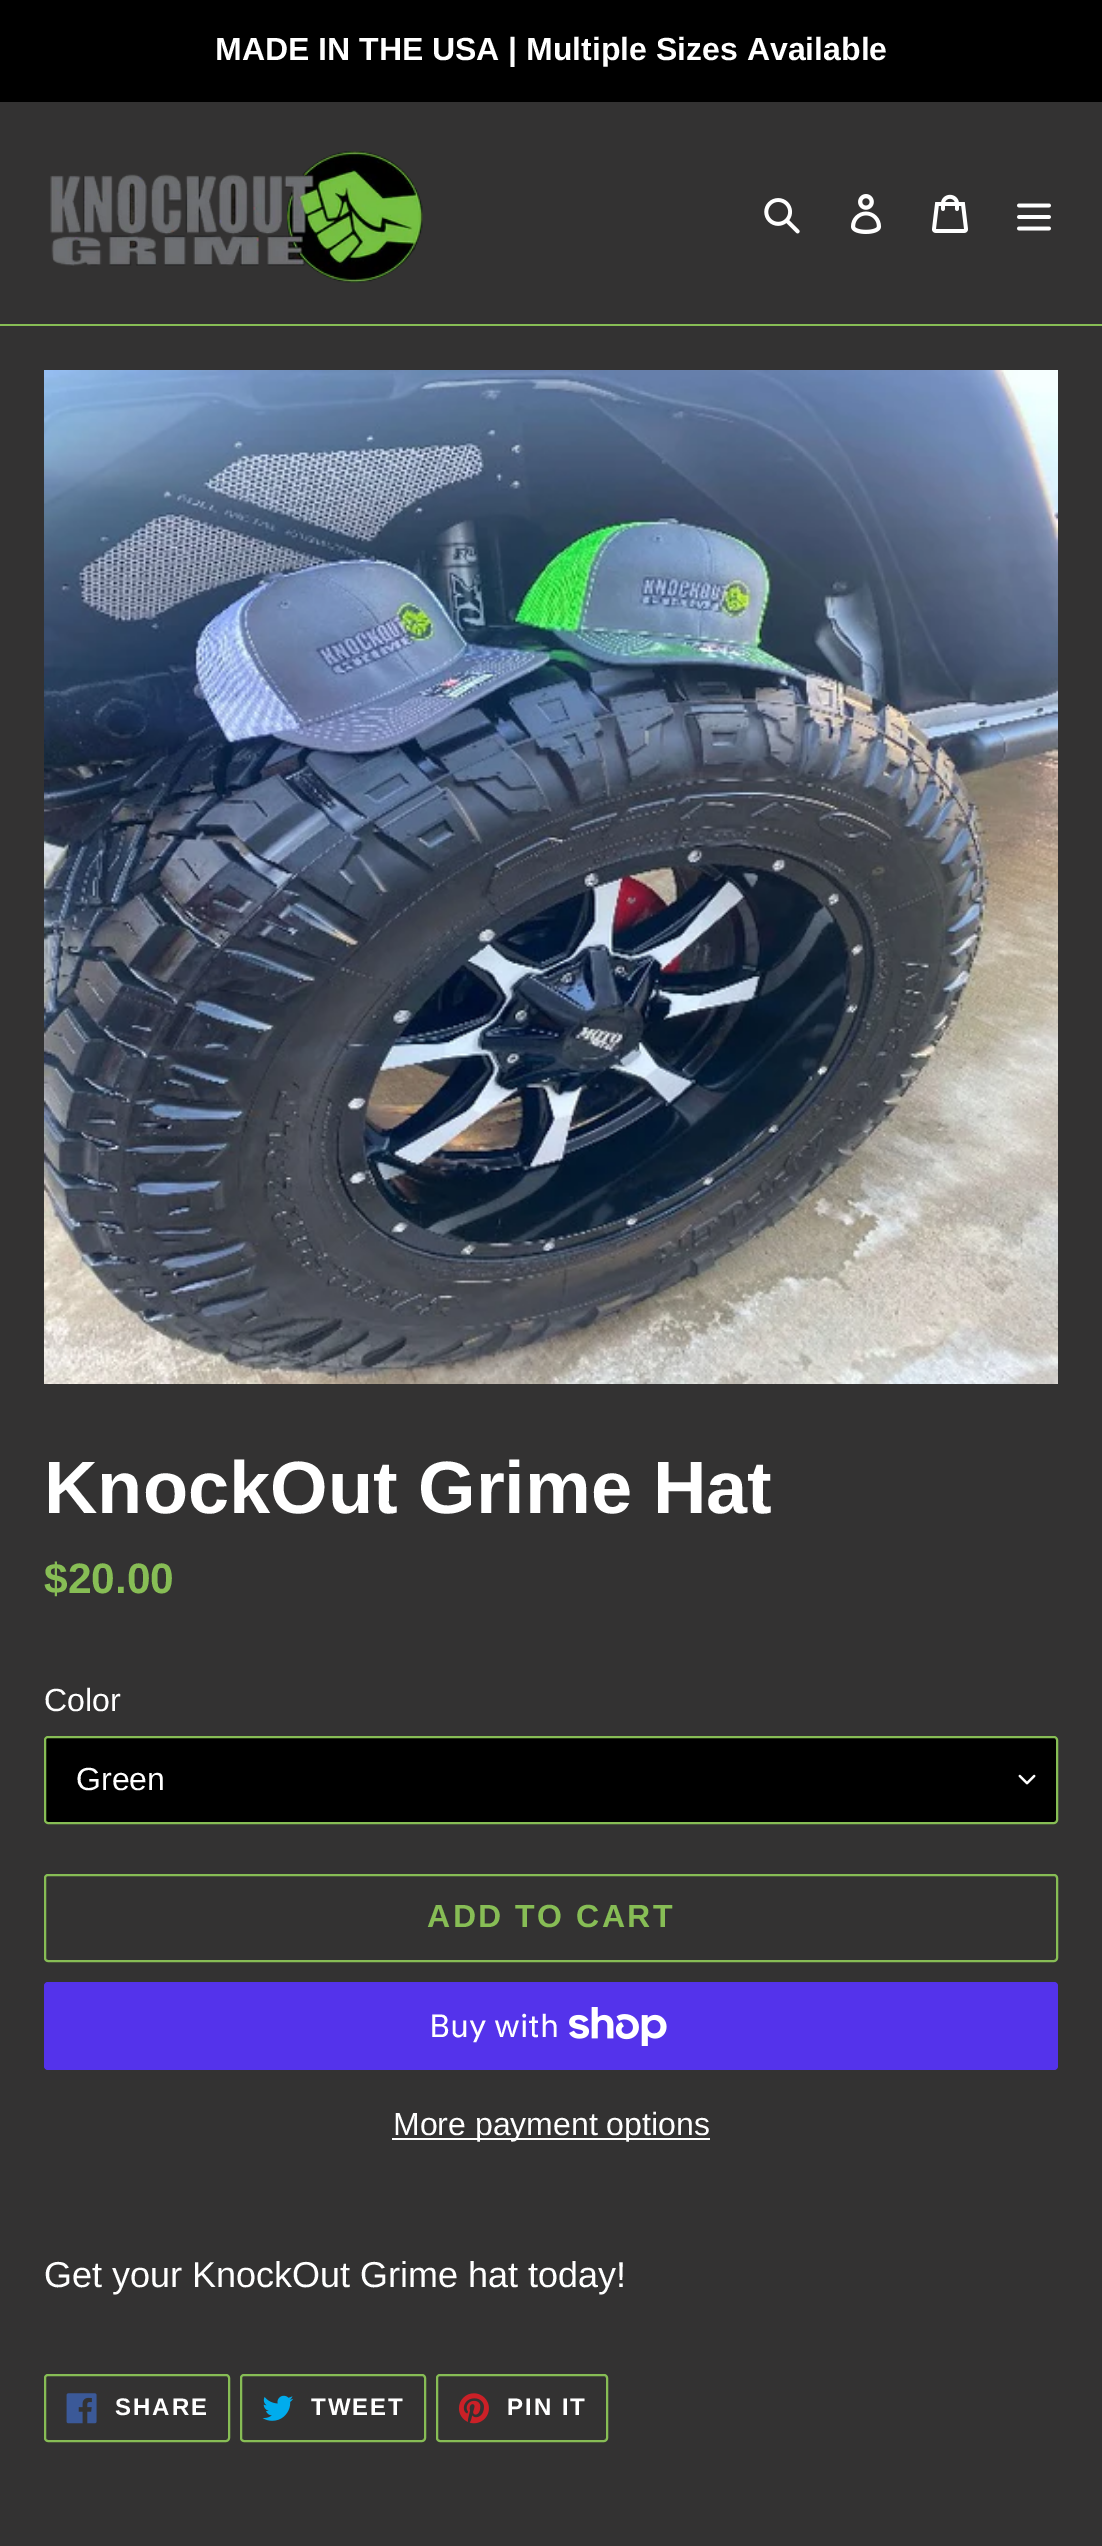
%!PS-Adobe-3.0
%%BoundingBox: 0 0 1102 2546
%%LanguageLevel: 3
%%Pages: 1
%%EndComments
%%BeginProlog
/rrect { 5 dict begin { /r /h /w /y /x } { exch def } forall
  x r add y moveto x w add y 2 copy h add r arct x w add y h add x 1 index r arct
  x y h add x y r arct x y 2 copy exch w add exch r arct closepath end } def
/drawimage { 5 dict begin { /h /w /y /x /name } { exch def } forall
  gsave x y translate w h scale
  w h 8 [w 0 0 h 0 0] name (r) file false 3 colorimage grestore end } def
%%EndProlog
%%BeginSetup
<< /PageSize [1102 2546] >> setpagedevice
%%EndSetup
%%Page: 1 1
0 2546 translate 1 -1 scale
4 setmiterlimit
0.2 0.196 0.196 setrgbcolor
0 0 1102 2546 rectfill
0 setgray
0 0 1102 102 rectfill
0.529 0.741 0.333 setrgbcolor
0 324 1102 2 rectfill
(images/1.raw) 50 151 373 132 drawimage
(images/2.raw) 764 198 36 36 drawimage
(images/3.raw) 851 194 31 40 drawimage
(images/4.raw) 932 194 36 39 drawimage
(images/5.raw) 1017 203 34 28 drawimage
(images/6.raw) 44 370 1014 1014 drawimage
0 setgray
44 1736 1014 88 4 rrect fill
(images/7.raw) 1018 1774 18 11 drawimage
0.529 0.741 0.333 setrgbcolor
2 setlinewidth
45 1737 1012 86 3 rrect stroke
45 1875 1012 86 3 rrect stroke
0.329 0.2 0.922 setrgbcolor
44 1982 1014 88 4 rrect fill
(images/8.raw) 569 2007 98 39 drawimage
1 setgray
392 2138 318 2 rectfill
0.529 0.741 0.333 setrgbcolor
45 2375 184 66 3 rrect stroke
(images/9.raw) 66 2393 31 31 drawimage
241 2375 184 66 3 rrect stroke
(images/10.raw) 262 2395 32 26 drawimage
437 2375 170 66 3 rrect stroke
(images/11.raw) 458 2393 31 31 drawimage
/LiberationSans-Bold [32 0 0 -32 0 0] selectfont
1 setgray
215 60 moveto (MADE IN THE USA | Multiple Sizes Available) show
/LiberationSans-Bold [74 0 0 -74 0 0] selectfont
44 1513 moveto (KnockOut Grime Hat) show
/LiberationSans-Bold [42.5 0 0 -42.5 0 0] selectfont
0.529 0.741 0.333 setrgbcolor
44 1593 moveto ($20.00) show
/LiberationSans-Regular [32 0 0 -32 0 0] selectfont
1 setgray
44 1711 moveto (Color) show
76 1790 moveto (Green) show
/LiberationSans-Bold [32 0 0 -32 0 0] selectfont
0.529 0.741 0.333 setrgbcolor
427 1927 moveto 2.5 0 (ADD TO CART) ashow
/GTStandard-Regular [32 0 0 -32 0 0] selectfont
1 setgray
429 2037 moveto (Buy with) show
/LiberationSans-Regular [32 0 0 -32 0 0] selectfont
393 2135 moveto (More payment options) show
/LiberationSans-Regular [36 0 0 -36 0 0] selectfont
44 2287 moveto (Get your KnockOut Grime hat today!) show
/LiberationSans-Bold [24 0 0 -24 0 0] selectfont
115 2415 moveto 2 0 (SHARE) ashow
311 2415 moveto 2 0 (TWEET) ashow
507 2415 moveto 2 0 (PIN IT) ashow
showpage
%%EOF
